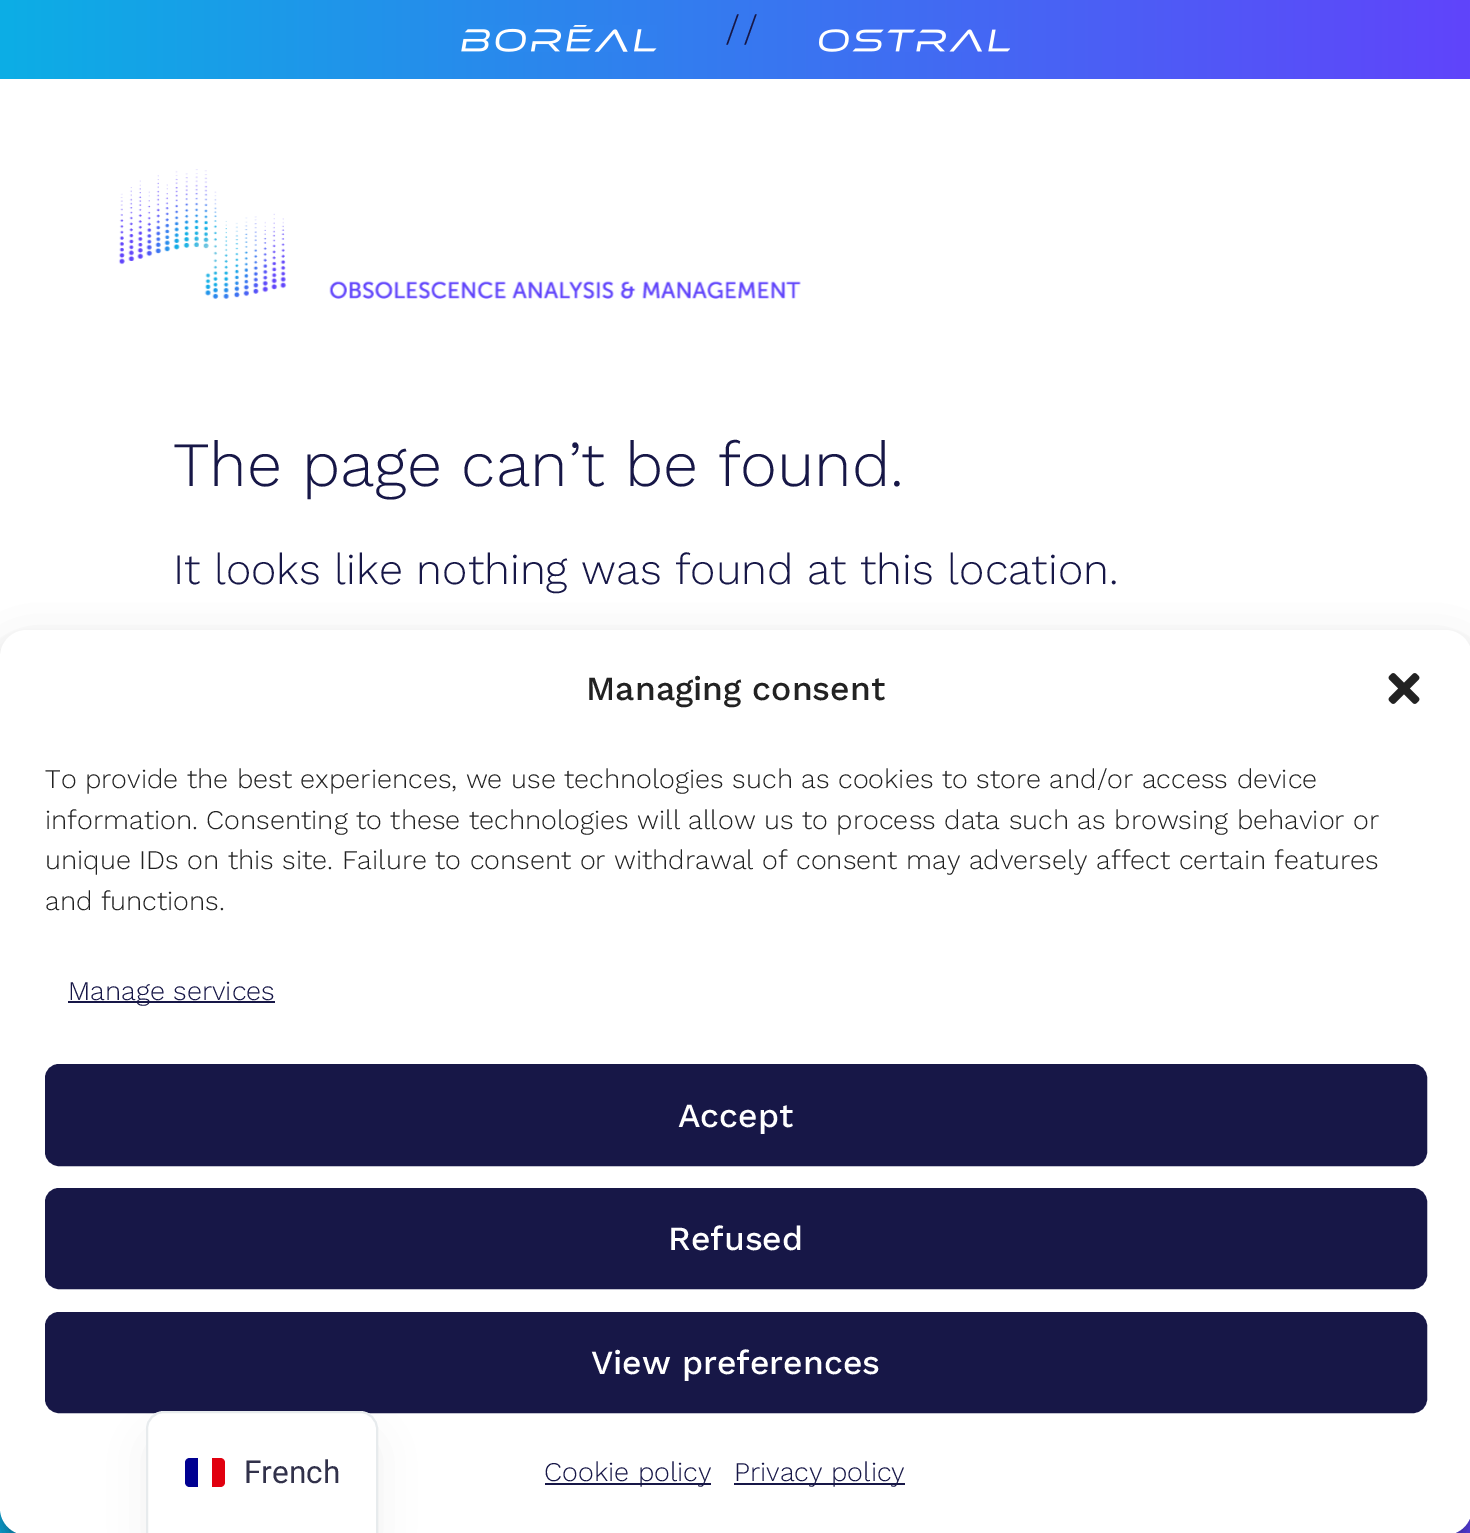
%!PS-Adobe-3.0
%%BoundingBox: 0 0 1470 1533
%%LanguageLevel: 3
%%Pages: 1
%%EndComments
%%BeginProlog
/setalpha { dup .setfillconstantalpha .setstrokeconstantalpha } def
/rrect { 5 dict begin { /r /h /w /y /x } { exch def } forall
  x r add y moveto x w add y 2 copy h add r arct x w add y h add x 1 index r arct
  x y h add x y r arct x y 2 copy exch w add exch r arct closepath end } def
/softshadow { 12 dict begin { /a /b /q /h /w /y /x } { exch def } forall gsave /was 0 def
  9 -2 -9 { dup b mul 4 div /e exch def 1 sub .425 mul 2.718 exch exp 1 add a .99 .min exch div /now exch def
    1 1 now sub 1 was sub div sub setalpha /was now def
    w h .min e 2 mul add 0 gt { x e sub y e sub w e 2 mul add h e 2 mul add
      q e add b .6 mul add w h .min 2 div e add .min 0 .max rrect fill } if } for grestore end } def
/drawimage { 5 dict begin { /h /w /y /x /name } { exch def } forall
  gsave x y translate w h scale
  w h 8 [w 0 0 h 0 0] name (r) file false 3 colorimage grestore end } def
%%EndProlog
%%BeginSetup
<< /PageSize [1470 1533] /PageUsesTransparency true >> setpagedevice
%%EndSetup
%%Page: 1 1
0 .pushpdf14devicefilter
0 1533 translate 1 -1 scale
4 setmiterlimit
1 setgray
0 0 1470 1533 rectfill
gsave newpath 0 0 moveto 1470 0 lineto 1470 79 lineto 0 79 lineto closepath clip newpath
<< /ShadingType 2 /ColorSpace /DeviceRGB /Coords [0 39 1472 39] /Extend [true true] /Function << /FunctionType 2 /Domain [0 1] /C0 [0.047 0.682 0.898] /C1 [0.376 0.267 0.984] /N 1 >> >> shfill grestore
(images/1.raw) 461 25 196 27 drawimage
(images/2.raw) 819 29 191 23 drawimage
(images/3.raw) 118 169 683 130 drawimage
gsave newpath 0 1508 moveto 1470 1508 lineto 1470 1533 lineto 0 1533 lineto closepath clip newpath
<< /ShadingType 2 /ColorSpace /DeviceRGB /Coords [0 1515 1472 1515] /Extend [true true] /Function << /FunctionType 2 /Domain [0 1] /C0 [0.047 0.682 0.898] /C1 [0.376 0.267 0.984] /N 1 >> >> shfill grestore
0 setgray
0 644 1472 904 27 7 0.23 softshadow
0 653 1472 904 27 22.5 0.19 softshadow
1 setgray
0 630 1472 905 27 rrect fill
(images/4.raw) 1388 673 32 31 drawimage
0.09 0.09 0.278 setrgbcolor
68 1001 207 2 rectfill
46 1065 1380 100 13 rrect gsave fill grestore
2 setlinewidth
stroke
46 1189 1380 99 13 rrect gsave fill grestore
stroke
46 1313 1380 99 13 rrect gsave fill grestore
stroke
545 1483 166 2 rectfill
734 1483 171 2 rectfill
0 setgray
146 1433 232 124 18 22.5 0.05 softshadow
1 setgray
newpath 164 1411 moveto 360 1411 lineto 370 1411 378 1419 378 1429 curveto 378 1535 lineto 146 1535 lineto 146 1429 lineto 146 1419 154 1411 164 1411 curveto closepath fill
0.1 setalpha
0.078 0.22 0.322 setrgbcolor
newpath 164 1412 moveto 360 1412 lineto 369.5 1412 377 1419.5 377 1429 curveto 377 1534 lineto 147 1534 lineto 147 1429 lineto 147 1419.5 154.5 1412 164 1412 curveto closepath stroke
1 setalpha
0 0 0.569 setrgbcolor
newpath 190 1458 moveto 198 1458 lineto 198 1487 lineto 190 1487 lineto 187 1487 185 1485 185 1482 curveto 185 1463 lineto 185 1460 187 1458 190 1458 curveto closepath fill
0.882 0 0.059 setrgbcolor
newpath 212 1458 moveto 220 1458 lineto 223 1458 225 1460 225 1463 curveto 225 1482 lineto 225 1485 223 1487 220 1487 curveto 212 1487 lineto closepath fill
/WorkSans-Light [38 0 0 -38 0 0] selectfont
0.09 0.09 0.278 setrgbcolor
725 42 moveto 3 0 (//) ashow
/WorkSans-Light [63 0 0 -63 0 0] selectfont
173 486 moveto (The page can’t be found.) show
/WorkSans-Light [43.2 0 0 -43.2 0 0] selectfont
173 584 moveto (It looks like nothing was found at this location.) show
/WorkSans-Medium [33.75 0 0 -33.75 0 0] selectfont
0.133 setgray
586 700 moveto (Managing consent) show
/WorkSans-Light [27 0 0 -27 0 0] selectfont
45 788 moveto (To provide the best experiences, we use technologies such as cookies to store and/or access device) show
45 829 moveto (information. Consenting to these technologies will allow us to process data such as browsing behavior or) show
45 869 moveto (unique IDs on this site. Failure to consent or withdrawal of consent may adversely affect certain features) show
45 910 moveto (and functions.) show
0.09 0.09 0.278 setrgbcolor
68 1000 moveto (Manage services) show
/WorkSans-Medium [33.75 0 0 -33.75 0 0] selectfont
1 setgray
678 1127 moveto (Accept) show
668 1250 moveto (Refused) show
591 1374 moveto (View preferences) show
/WorkSans-Light [27 0 0 -27 0 0] selectfont
0.09 0.09 0.278 setrgbcolor
544 1481 moveto (Cookie policy) show
734 1481 moveto (Privacy policy) show
/Roboto-Regular [31.5 0 0 -31.5 0 0] selectfont
0.192 0.192 0.29 setrgbcolor
244 1483 moveto (French) show
.poppdf14devicefilter showpage
%%EOF
